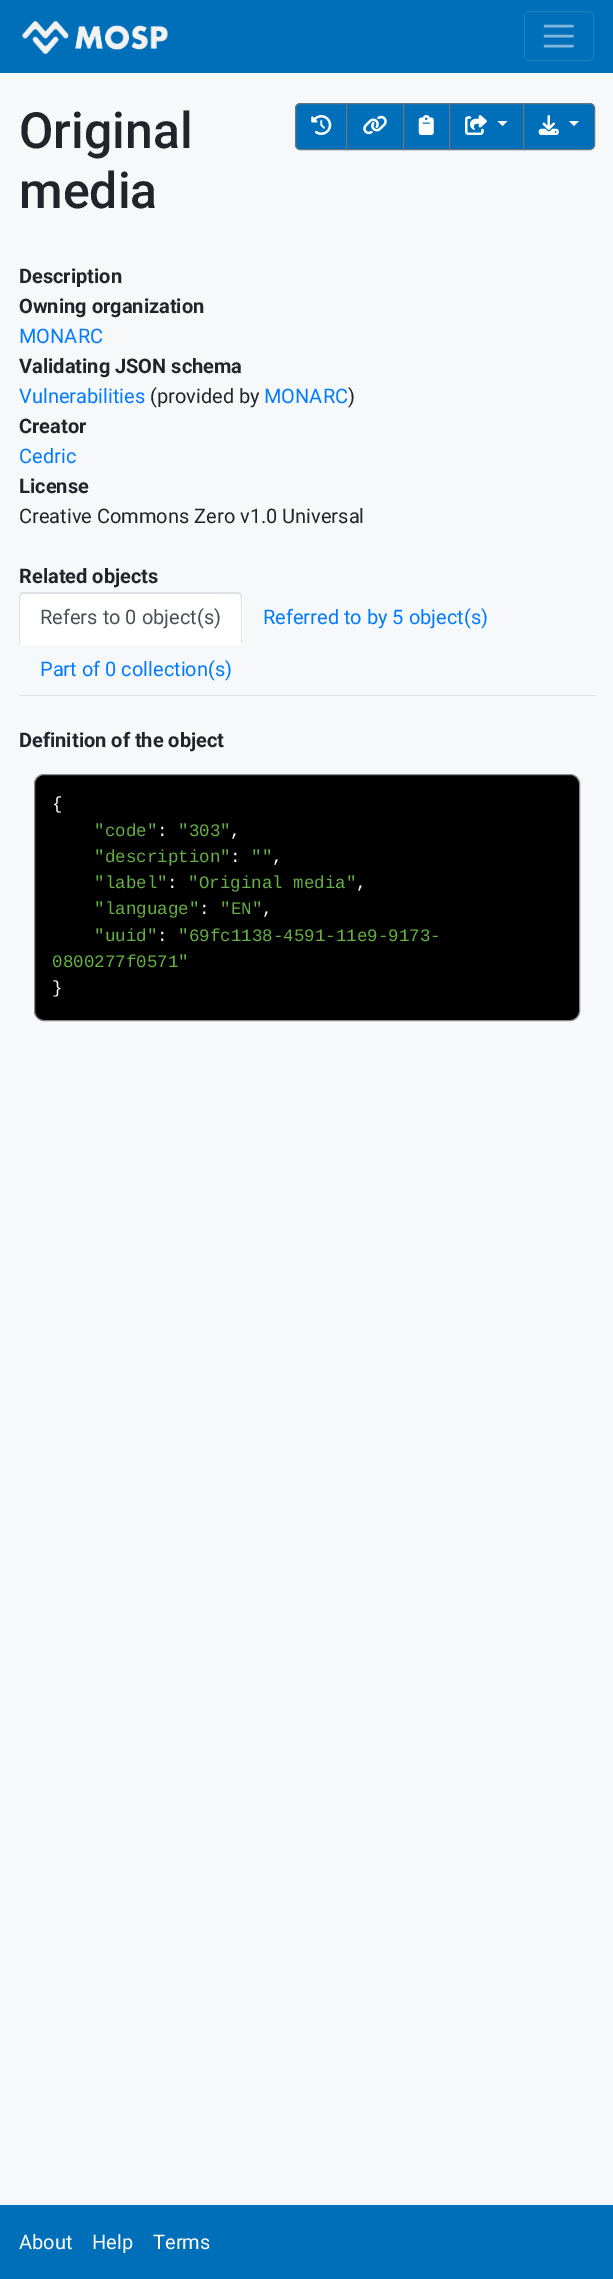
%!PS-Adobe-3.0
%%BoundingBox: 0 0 613 2279
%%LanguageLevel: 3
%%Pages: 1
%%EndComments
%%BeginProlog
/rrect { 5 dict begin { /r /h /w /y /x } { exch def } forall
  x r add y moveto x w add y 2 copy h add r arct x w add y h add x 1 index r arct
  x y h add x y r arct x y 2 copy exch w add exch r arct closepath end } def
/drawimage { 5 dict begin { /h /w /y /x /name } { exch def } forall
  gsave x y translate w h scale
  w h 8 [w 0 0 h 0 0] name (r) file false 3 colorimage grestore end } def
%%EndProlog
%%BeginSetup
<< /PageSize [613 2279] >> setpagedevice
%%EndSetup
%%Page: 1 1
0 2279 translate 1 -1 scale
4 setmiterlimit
0.965 0.973 0.98 setrgbcolor
0 0 613 2279 rectfill
0 0.435 0.729 setrgbcolor
0 0 613 73 rectfill
(images/1.raw) 22 21 146 33 drawimage
0.102 0.49 0.757 setrgbcolor
524.5 11.5 69 49 4.5 rrect stroke
0.502 0.718 0.867 setrgbcolor
2.5 setlinewidth
1 setlinecap
newpath 545 26 moveto 572.5 26 lineto 545 36 moveto 572.5 36 lineto 545 46 moveto 572.5 46 lineto stroke
0 0.435 0.729 setrgbcolor
newpath 300 103.5 moveto 347.5 103.5 lineto 347.5 149.5 lineto 300 149.5 lineto 297.5 149.5 295.5 147.5 295.5 145 curveto 295.5 108 lineto 295.5 105.5 297.5 103.5 300 103.5 curveto closepath gsave fill grestore
0.424 0.459 0.49 setrgbcolor
1 setlinewidth
0 setlinecap
stroke
(images/2.raw) 311 115 21 20 drawimage
0 0.435 0.729 setrgbcolor
newpath 346.5 103.5 moveto 403.5 103.5 lineto 403.5 149.5 lineto 346.5 149.5 lineto closepath gsave fill grestore
0.424 0.459 0.49 setrgbcolor
stroke
(images/3.raw) 363 115 24 20 drawimage
0 0.435 0.729 setrgbcolor
newpath 403.5 103.5 moveto 449.5 103.5 lineto 449.5 149.5 lineto 403.5 149.5 lineto closepath gsave fill grestore
0.424 0.459 0.49 setrgbcolor
stroke
(images/4.raw) 418 115 16 20 drawimage
0 0.435 0.729 setrgbcolor
newpath 449.5 103.5 moveto 523.5 103.5 lineto 523.5 149.5 lineto 449.5 149.5 lineto closepath gsave fill grestore
0.424 0.459 0.49 setrgbcolor
stroke
(images/5.raw) 465 115 22 20 drawimage
1 setgray
newpath 497.5 121 moveto 507.5 121 lineto 502.5 126 lineto closepath fill
0 0.435 0.729 setrgbcolor
newpath 523.5 103.5 moveto 590 103.5 lineto 592.5 103.5 594.5 105.5 594.5 108 curveto 594.5 145 lineto 594.5 147.5 592.5 149.5 590 149.5 curveto 523.5 149.5 lineto closepath gsave fill grestore
0.424 0.459 0.49 setrgbcolor
stroke
(images/6.raw) 538 115 21 20 drawimage
1 setgray
newpath 569 121 moveto 579 121 lineto 574 126 lineto closepath fill
0.871 0.886 0.902 setrgbcolor
19 695 576 1 rectfill
1 setgray
newpath 24 593 moveto 238 593 lineto 241 593 243 595 243 598 curveto 243 645 lineto 19 645 lineto 19 598 lineto 19 595 21 593 24 593 curveto closepath fill
0.871 0.886 0.902 setrgbcolor
newpath 24 594 moveto 21 595 lineto 20 594 lineto 22 592 lineto 239 592 lineto 241 594 lineto 240 595 lineto 238 594 lineto closepath fill
newpath 241 594 moveto 242 595 242 597 242 598 curveto 242 644 lineto 241 644 lineto 241 638 242 597 240 595 curveto closepath fill
newpath 19 645 moveto 19 598 lineto 19 597 19 595 20 594 curveto 21 595 lineto 20 597 lineto 20 644 lineto closepath fill
0 setgray
34.5 774.5 545 246 9.5 rrect gsave fill grestore
0.533 setgray
stroke
0 0.435 0.729 setrgbcolor
0 2205 613 74 rectfill
/Roboto-Medium [50 0 0 -50 0 0] selectfont
0.129 0.145 0.161 setrgbcolor
19 148 moveto (Original) show
19 208 moveto (media) show
/Roboto-Bold [20 0 0 -20 0 0] selectfont
19 283 moveto (Description) show
19 313 moveto (Owning organization) show
/Roboto-Regular [20 0 0 -20 0 0] selectfont
0 0.482 1 setrgbcolor
19 343 moveto (MONARC) show
/Roboto-Bold [20 0 0 -20 0 0] selectfont
0.129 0.145 0.161 setrgbcolor
19 373 moveto (Validating JSON schema) show
/Roboto-Regular [20 0 0 -20 0 0] selectfont
0 0.482 1 setrgbcolor
19 403 moveto (Vulnerabilities) show
0.129 0.145 0.161 setrgbcolor
150 403 moveto (\(provided by) show
0 0.482 1 setrgbcolor
264 403 moveto (MONARC) show
0.129 0.145 0.161 setrgbcolor
348 403 moveto (\)) show
/Roboto-Bold [20 0 0 -20 0 0] selectfont
19 433 moveto (Creator) show
/Roboto-Regular [20 0 0 -20 0 0] selectfont
0 0.482 1 setrgbcolor
19 463 moveto (Cedric) show
/Roboto-Bold [20 0 0 -20 0 0] selectfont
0.129 0.145 0.161 setrgbcolor
19 493 moveto (License) show
/Roboto-Regular [20 0 0 -20 0 0] selectfont
19 523 moveto (Creative Commons Zero v1.0 Universal) show
/Roboto-Bold [20 0 0 -20 0 0] selectfont
19 583 moveto (Related objects) show
/Roboto-Regular [20 0 0 -20 0 0] selectfont
0.286 0.314 0.341 setrgbcolor
40 624 moveto (Refers to 0 object\(s\)) show
0 0.482 1 setrgbcolor
263 624 moveto (Referred to by 5 object\(s\)) show
40 676 moveto (Part of 0 collection\(s\)) show
/Roboto-Bold [20 0 0 -20 0 0] selectfont
0.129 0.145 0.161 setrgbcolor
19 747 moveto (Definition of the object) show
/LiberationMono-Regular [17.5 0 0 -17.5 0 0] selectfont
1 setgray
52 809 moveto ({) show
0.396 0.69 0.259 setrgbcolor
94 836 moveto ("code") show
1 setgray
157 836 moveto (:) show
0.396 0.69 0.259 setrgbcolor
178 836 moveto ("303") show
1 setgray
230 836 moveto (,) show
0.396 0.69 0.259 setrgbcolor
94 862 moveto ("description") show
1 setgray
230 862 moveto (:) show
0.396 0.69 0.259 setrgbcolor
251 862 moveto ("") show
1 setgray
272 862 moveto (,) show
0.396 0.69 0.259 setrgbcolor
94 888 moveto ("label") show
1 setgray
167 888 moveto (:) show
0.396 0.69 0.259 setrgbcolor
188 888 moveto ("Original media") show
1 setgray
356 888 moveto (,) show
0.396 0.69 0.259 setrgbcolor
94 914 moveto ("language") show
1 setgray
199 914 moveto (:) show
0.396 0.69 0.259 setrgbcolor
220 914 moveto ("EN") show
1 setgray
262 914 moveto (,) show
0.396 0.69 0.259 setrgbcolor
94 941 moveto ("uuid") show
1 setgray
157 941 moveto (:) show
0.396 0.69 0.259 setrgbcolor
178 941 moveto ("69fc1138-4591-11e9-9173-) show
52 967 moveto (0800277f0571") show
1 setgray
52 993 moveto (}) show
/Roboto-Regular [20 0 0 -20 0 0] selectfont
19 2249 moveto (About) show
92 2249 moveto (Help) show
153 2249 moveto (Terms) show
showpage
%%EOF
